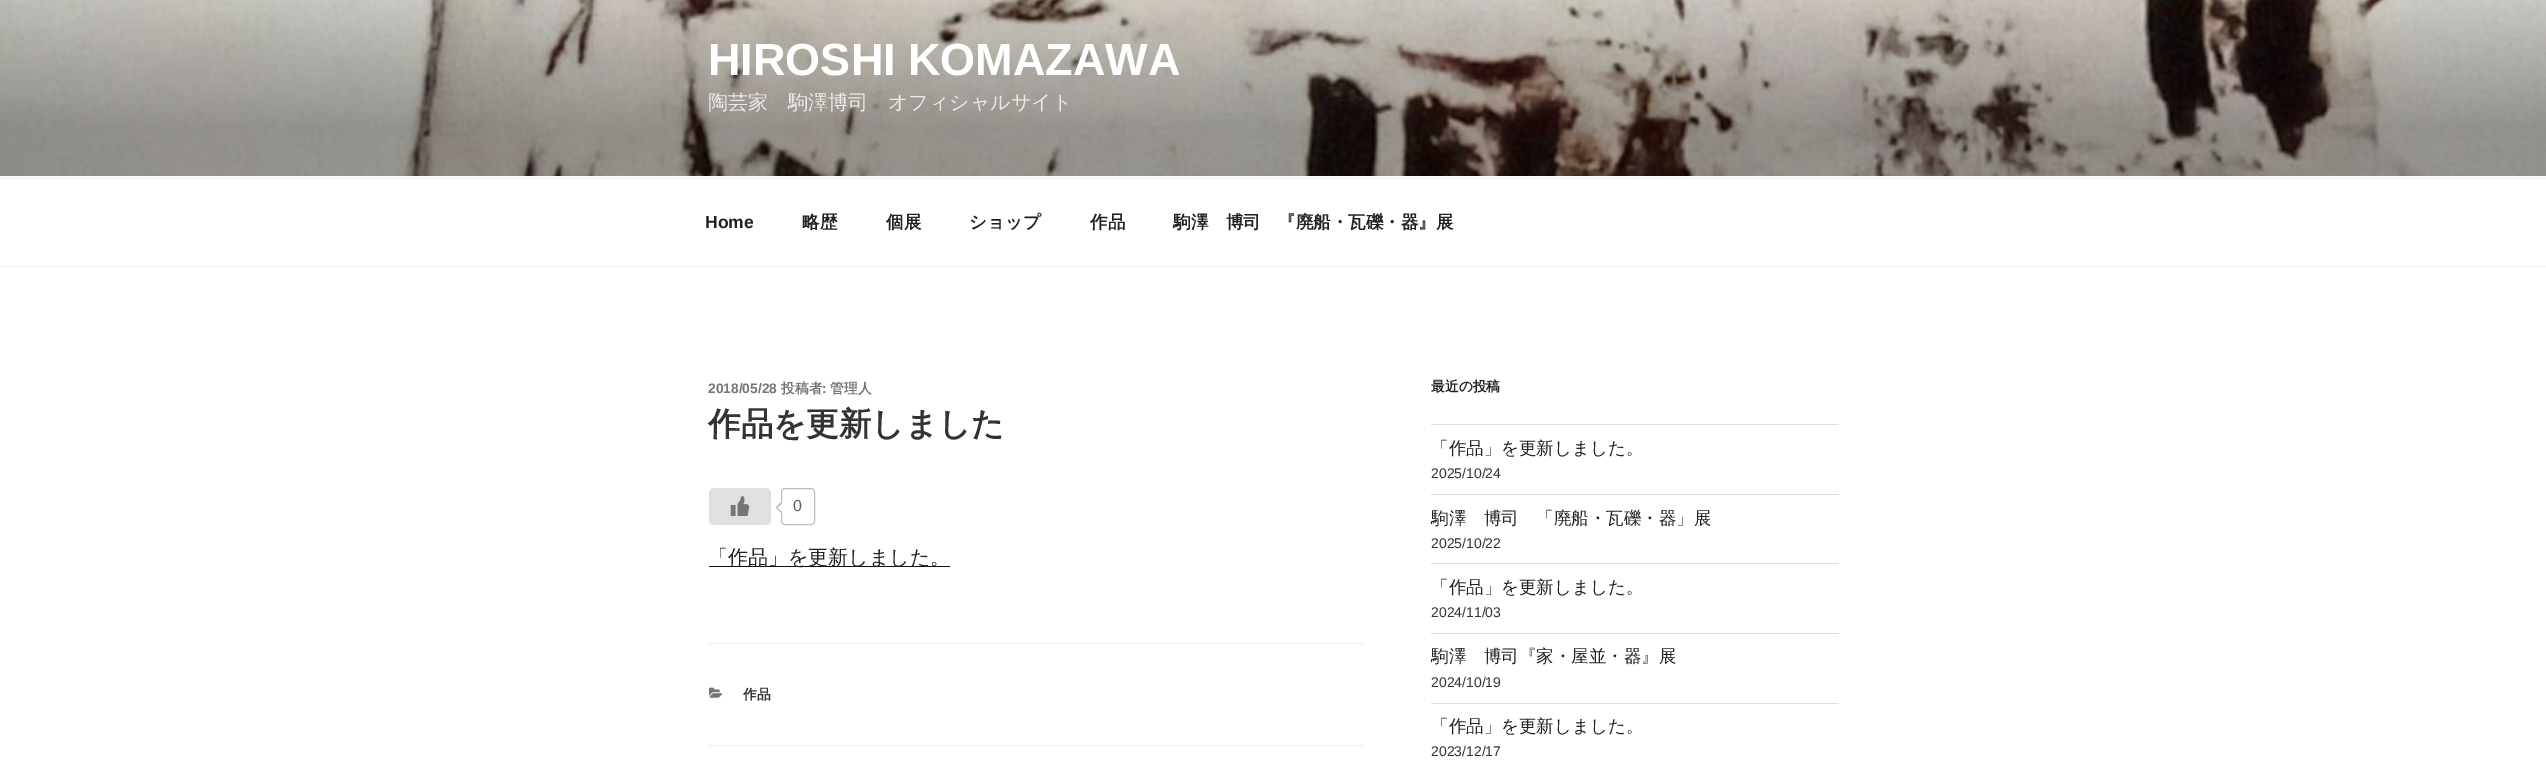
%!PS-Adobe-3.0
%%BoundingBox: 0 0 2546 763
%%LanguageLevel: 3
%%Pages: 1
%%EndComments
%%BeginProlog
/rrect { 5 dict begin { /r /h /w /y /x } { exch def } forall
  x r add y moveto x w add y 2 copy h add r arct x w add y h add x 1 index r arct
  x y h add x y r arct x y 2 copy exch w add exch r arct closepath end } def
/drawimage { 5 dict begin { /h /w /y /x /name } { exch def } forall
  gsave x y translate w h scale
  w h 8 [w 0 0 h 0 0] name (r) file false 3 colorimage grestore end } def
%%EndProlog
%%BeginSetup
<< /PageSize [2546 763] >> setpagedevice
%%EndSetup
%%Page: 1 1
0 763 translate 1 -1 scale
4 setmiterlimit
1 setgray
0 0 2546 763 rectfill
0.98 setgray
0 176 2546 2 rectfill
(images/1.raw) 0 0 2546 176 drawimage
0.933 setgray
0 178 2546 1 rectfill
0 266 2546 1 rectfill
0.878 setgray
709 488 62 37 5 rrect fill
(images/2.raw) 730 496 20 20 drawimage
0.741 setgray
781.5 488.5 33 36 3.5 rrect stroke
1 setgray
newpath 782 501.5 moveto 788 507.5 lineto 782 514 lineto 775.5 507.5 lineto closepath fill
0.741 setgray
newpath 782 514 moveto 775.5 507.5 lineto 777.5 507.5 lineto 782 512 lineto closepath fill
newpath 775.5 507.5 moveto 782 501.5 lineto 782 503.5 lineto 777.5 507.5 lineto closepath fill
0.059 setgray
709 566 241 1 rectfill
0.933 setgray
709 643 655 1 rectfill
709 745 655 1 rectfill
(images/3.raw) 709 687 14 11 drawimage
0.867 setgray
1431 424 408 1 rectfill
1431 494 408 1 rectfill
1431 563 408 1 rectfill
1431 633 408 1 rectfill
1431 703 408 1 rectfill
/LiberationSans-Bold [45 0 0 -45 0 0] selectfont
1 setgray
708 75 moveto (HIROSHI KOMAZAWA) show
/WenQuanYiZenHei-Medium [20 0 0 -20 0 0] selectfont
0.925 0.922 0.914 setrgbcolor
708 109 moveto (陶芸家　駒澤博司　オフィシャルサイト) show
/LiberationSans-Bold [17.5 0 0 -17.5 0 0] selectfont
0.133 setgray
705 228 moveto (Home) show
/WenQuanYiZenHei-Bold [17.5 0 0 -17.5 0 0] selectfont
802 228 moveto (略歴) show
886 228 moveto (個展) show
969 228 moveto (ショップ) show
1090 228 moveto (作品) show
1173 228 moveto (駒澤　博司　『廃船・瓦礫・器』展) show
/LiberationSans-Bold [13.75 0 0 -13.75 0 0] selectfont
0.463 setgray
708 393 moveto (2018/05/28) show
/WenQuanYiZenHei-Bold [13.75 0 0 -13.75 0 0] selectfont
781 393 moveto (投稿者) show
/LiberationSans-Bold [13.75 0 0 -13.75 0 0] selectfont
822 393 moveto (:) show
/WenQuanYiZenHei-Bold [13.75 0 0 -13.75 0 0] selectfont
830 393 moveto (管理人) show
/WenQuanYiZenHei-Bold [32.5 0 0 -32.5 0 0] selectfont
0.2 setgray
708 435 moveto (作品を更新しました) show
/LiberationSans-Regular [16 0 0 -16 0 0] selectfont
0.38 setgray
793 511 moveto (0) show
/WenQuanYiZenHei-Medium [20 0 0 -20 0 0] selectfont
0.133 setgray
708 564 moveto (「作品」を更新しました。) show
/WenQuanYiZenHei-Bold [13.75 0 0 -13.75 0 0] selectfont
0.2 setgray
743 699 moveto (作品) show
0.133 setgray
1431 391 moveto (最近の投稿) show
/WenQuanYiZenHei-Medium [17.5 0 0 -17.5 0 0] selectfont
1431 454 moveto (「作品」を更新しました。) show
/LiberationSans-Regular [14 0 0 -14 0 0] selectfont
0.2 setgray
1431 478 moveto (2025/10/24) show
/WenQuanYiZenHei-Medium [17.5 0 0 -17.5 0 0] selectfont
0.133 setgray
1431 524 moveto (駒澤　博司　「廃船・瓦礫・器」展) show
/LiberationSans-Regular [14 0 0 -14 0 0] selectfont
0.2 setgray
1431 548 moveto (2025/10/22) show
/WenQuanYiZenHei-Medium [17.5 0 0 -17.5 0 0] selectfont
0.133 setgray
1431 593 moveto (「作品」を更新しました。) show
/LiberationSans-Regular [14 0 0 -14 0 0] selectfont
0.2 setgray
1431 617 moveto (2024/11/03) show
/WenQuanYiZenHei-Medium [17.5 0 0 -17.5 0 0] selectfont
0.133 setgray
1431 662 moveto (駒澤　博司『家・屋並・器』展) show
/LiberationSans-Regular [14 0 0 -14 0 0] selectfont
0.2 setgray
1431 687 moveto (2024/10/19) show
/WenQuanYiZenHei-Medium [17.5 0 0 -17.5 0 0] selectfont
0.133 setgray
1431 732 moveto (「作品」を更新しました。) show
/LiberationSans-Regular [14 0 0 -14 0 0] selectfont
0.2 setgray
1431 756 moveto (2023/12/17) show
showpage
%%EOF
